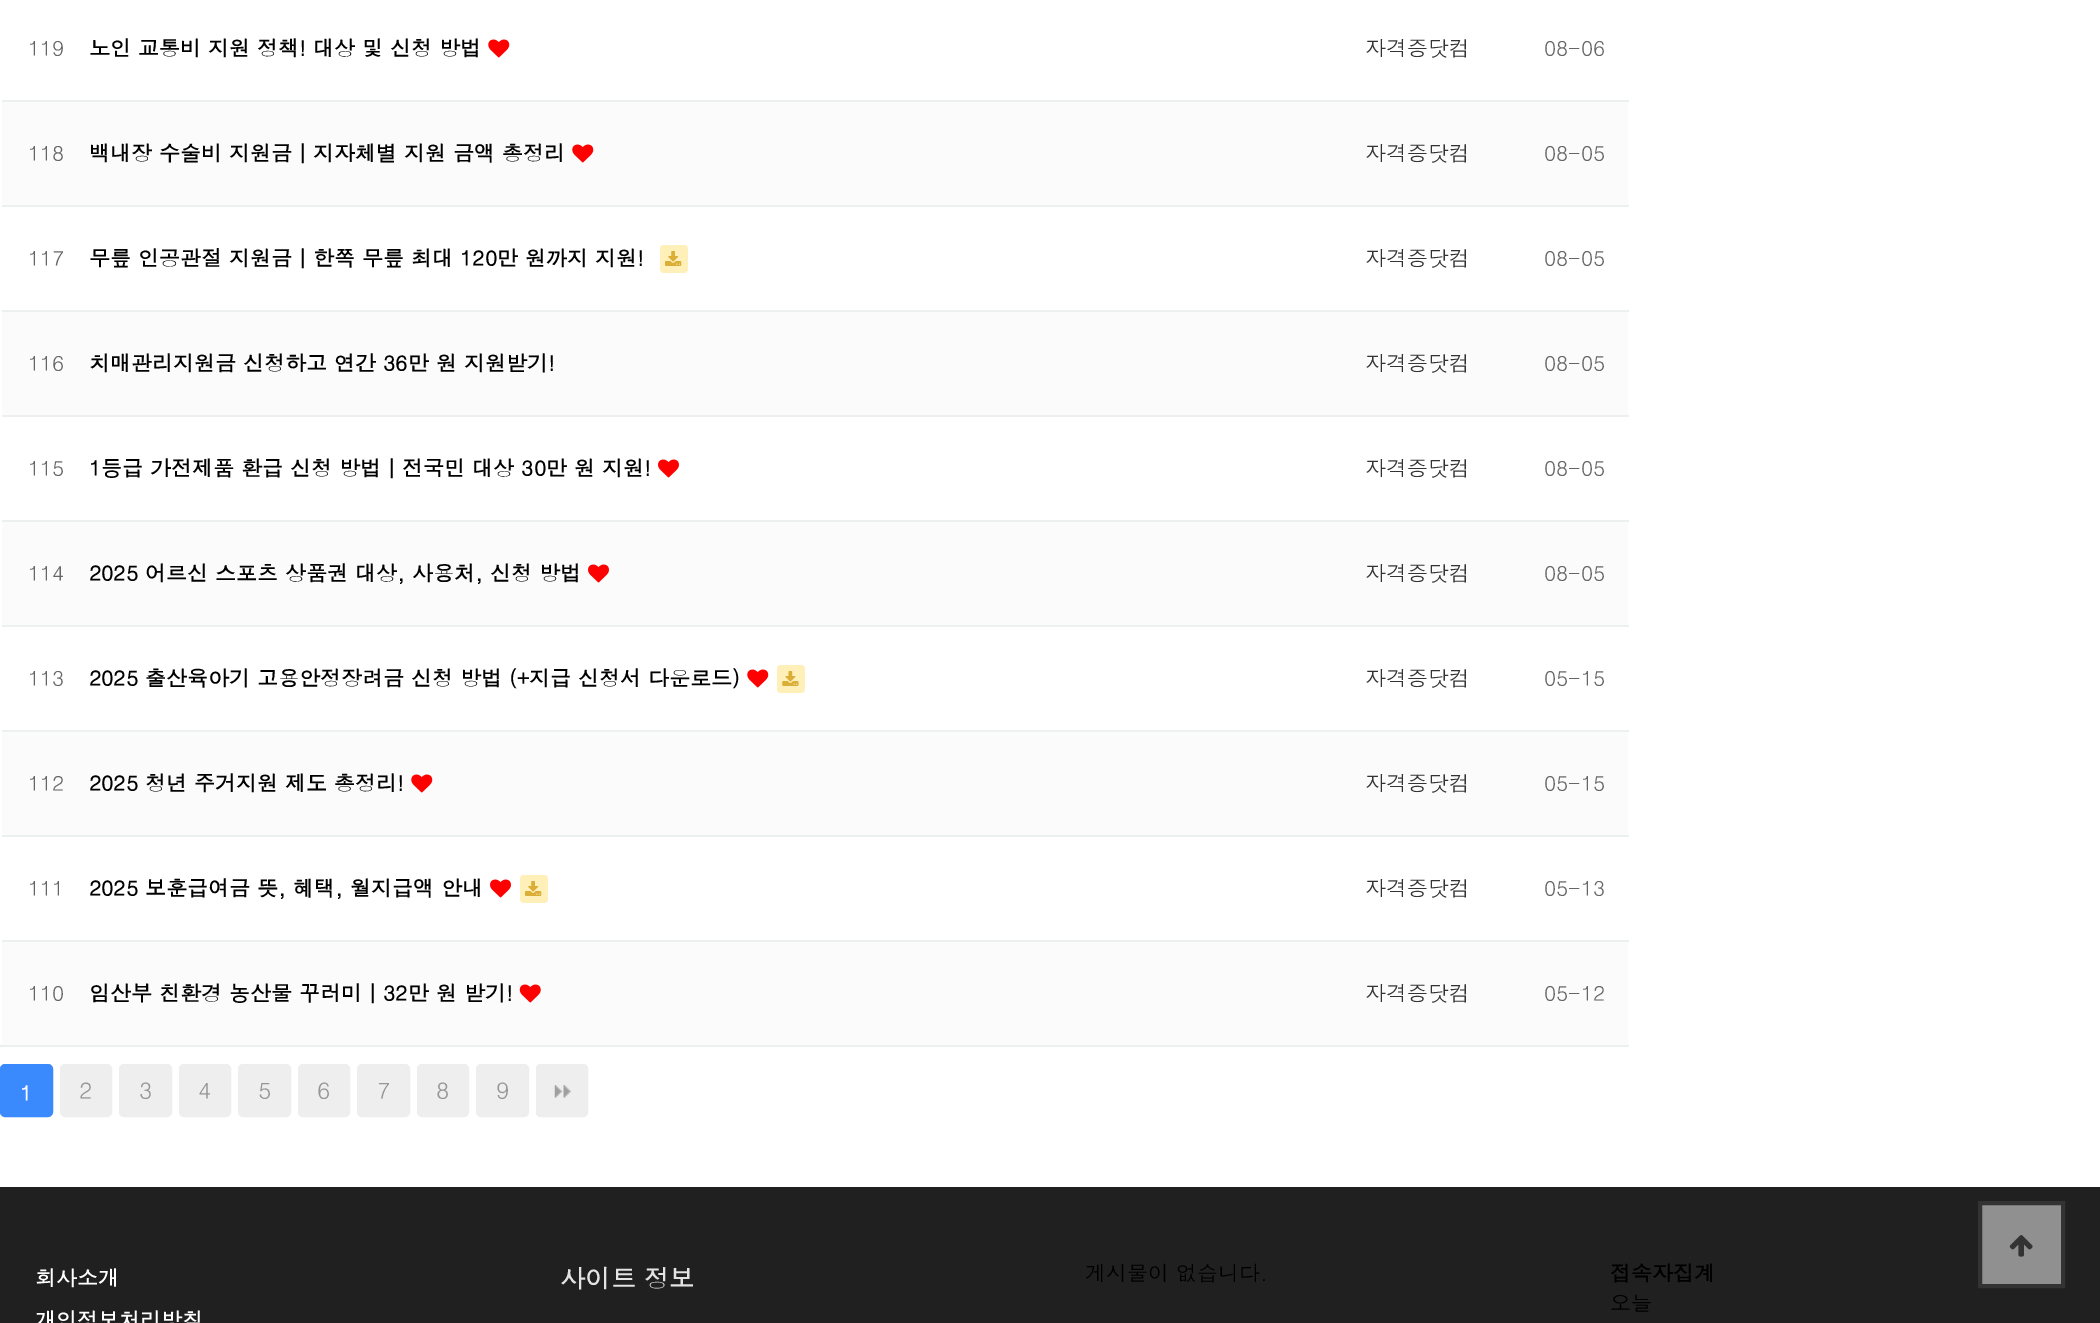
%!PS-Adobe-3.0
%%BoundingBox: 0 0 2100 1323
%%LanguageLevel: 3
%%Pages: 1
%%EndComments
%%BeginProlog
/rrect { 5 dict begin { /r /h /w /y /x } { exch def } forall
  x r add y moveto x w add y 2 copy h add r arct x w add y h add x 1 index r arct
  x y h add x y r arct x y 2 copy exch w add exch r arct closepath end } def
/drawimage { 5 dict begin { /h /w /y /x /name } { exch def } forall
  gsave x y translate w h scale
  w h 8 [w 0 0 h 0 0] name (r) file false 3 colorimage grestore end } def
%%EndProlog
%%BeginSetup
<< /PageSize [2100 1323] >> setpagedevice
%%EndSetup
%%Page: 1 1
0 1323 translate 1 -1 scale
4 setmiterlimit
1 setgray
0 0 2100 1323 rectfill
0.925 setgray
0 1045 2 2 rectfill
(images/1.raw) 488 39 22 19 drawimage
0.984 setgray
2 102 1626 103 rectfill
(images/2.raw) 572 144 22 19 drawimage
0.925 0.941 0.945 setrgbcolor
2 100 1627 2 rectfill
1 0.937 0.725 setrgbcolor
660 245 28 28 4 rrect fill
(images/3.raw) 665 251 17 15 drawimage
0.925 0.941 0.945 setrgbcolor
2 205 1627 2 rectfill
0.984 setgray
2 312 1626 103 rectfill
0.925 0.941 0.945 setrgbcolor
2 310 1627 2 rectfill
(images/4.raw) 658 459 21 19 drawimage
2 415 1627 2 rectfill
0.984 setgray
2 522 1626 103 rectfill
(images/5.raw) 588 564 21 19 drawimage
0.925 0.941 0.945 setrgbcolor
2 520 1627 2 rectfill
(images/1.raw) 747 669 22 19 drawimage
1 0.937 0.725 setrgbcolor
777 665 28 28 4 rrect fill
(images/6.raw) 782 671 17 15 drawimage
0.925 0.941 0.945 setrgbcolor
2 625 1627 2 rectfill
0.984 setgray
2 732 1626 103 rectfill
(images/2.raw) 411 774 22 19 drawimage
0.925 0.941 0.945 setrgbcolor
2 730 1627 2 rectfill
(images/7.raw) 490 879 21 19 drawimage
1 0.937 0.725 setrgbcolor
520 875 28 28 4 rrect fill
(images/3.raw) 525 881 17 15 drawimage
0.925 0.941 0.945 setrgbcolor
2 835 1627 2 rectfill
0.984 setgray
2 942 1626 103 rectfill
(images/8.raw) 519 984 22 19 drawimage
0.925 0.941 0.945 setrgbcolor
2 940 1627 2 rectfill
2 1045 1627 2 rectfill
0.227 0.541 0.992 setrgbcolor
1 1065 51 51 4 rrect gsave fill grestore
2 setlinewidth
stroke
0.933 setgray
61 1065 50 51 4 rrect gsave fill grestore
stroke
120 1065 51 51 4 rrect gsave fill grestore
stroke
180 1065 50 51 4 rrect gsave fill grestore
stroke
239 1065 51 51 4 rrect gsave fill grestore
stroke
299 1065 50 51 4 rrect gsave fill grestore
stroke
358 1065 51 51 4 rrect gsave fill grestore
stroke
418 1065 50 51 4 rrect gsave fill grestore
stroke
477 1065 51 51 4 rrect gsave fill grestore
stroke
536 1064 52 53 5 rrect fill
(images/9.raw) 554 1085 17 13 drawimage
537 1065 50 51 4 rrect stroke
0.129 0.125 0.125 setrgbcolor
0 1187 2100 136 rectfill
0.565 setgray
newpath 1980 1203 moveto 2063 1203 lineto 2063 1286 lineto 1980 1286 lineto closepath gsave fill grestore
0.2 setgray
4 setlinewidth
stroke
(images/10.raw) 2009 1235 24 22 drawimage
/Dotum-Regular [21 0 0 -21 0 0] selectfont
0.4 setgray
28 56 moveto (119) show
/Dotum-Bold [21 0 0 -21 0 0] selectfont
0 setgray
89 56 moveto (노인 교통비 지원 정책! 대상 및 신청 방법) show
/Dotum-Regular [21 0 0 -21 0 0] selectfont
0.2 setgray
1365 56 moveto (자격증닷컴) show
0.4 setgray
1544 56 moveto (08-06) show
28 161 moveto (118) show
/Dotum-Bold [21 0 0 -21 0 0] selectfont
0 setgray
89 161 moveto (백내장 수술비 지원금｜지자체별 지원 금액 총정리) show
/Dotum-Regular [21 0 0 -21 0 0] selectfont
0.2 setgray
1365 161 moveto (자격증닷컴) show
0.4 setgray
1544 161 moveto (08-05) show
28 266 moveto (117) show
/Dotum-Bold [21 0 0 -21 0 0] selectfont
0 setgray
89 266 moveto (무릎 인공관절 지원금｜한쪽 무릎 최대 120만 원까지 지원!) show
/Dotum-Regular [21 0 0 -21 0 0] selectfont
0.2 setgray
1365 266 moveto (자격증닷컴) show
0.4 setgray
1544 266 moveto (08-05) show
28 371 moveto (116) show
/Dotum-Bold [21 0 0 -21 0 0] selectfont
0 setgray
89 371 moveto (치매관리지원금 신청하고 연간 36만 원 지원받기!) show
/Dotum-Regular [21 0 0 -21 0 0] selectfont
0.2 setgray
1365 371 moveto (자격증닷컴) show
0.4 setgray
1544 371 moveto (08-05) show
28 476 moveto (115) show
/Dotum-Bold [21 0 0 -21 0 0] selectfont
0 setgray
89 476 moveto (1등급 가전제품 환급 신청 방법｜전국민 대상 30만 원 지원!) show
/Dotum-Regular [21 0 0 -21 0 0] selectfont
0.2 setgray
1365 476 moveto (자격증닷컴) show
0.4 setgray
1544 476 moveto (08-05) show
28 581 moveto (114) show
/Dotum-Bold [21 0 0 -21 0 0] selectfont
0 setgray
89 581 moveto (2025 어르신 스포츠 상품권 대상, 사용처, 신청 방법) show
/Dotum-Regular [21 0 0 -21 0 0] selectfont
0.2 setgray
1365 581 moveto (자격증닷컴) show
0.4 setgray
1544 581 moveto (08-05) show
28 686 moveto (113) show
/Dotum-Bold [21 0 0 -21 0 0] selectfont
0 setgray
89 686 moveto (2025 출산육아기 고용안정장려금 신청 방법 \(+지급 신청서 다운로드\)) show
/Dotum-Regular [21 0 0 -21 0 0] selectfont
0.2 setgray
1365 686 moveto (자격증닷컴) show
0.4 setgray
1544 686 moveto (05-15) show
28 791 moveto (112) show
/Dotum-Bold [21 0 0 -21 0 0] selectfont
0 setgray
89 791 moveto (2025 청년 주거지원 제도 총정리!) show
/Dotum-Regular [21 0 0 -21 0 0] selectfont
0.2 setgray
1365 791 moveto (자격증닷컴) show
0.4 setgray
1544 791 moveto (05-15) show
28 896 moveto (111) show
/Dotum-Bold [21 0 0 -21 0 0] selectfont
0 setgray
89 896 moveto (2025 보훈급여금 뜻, 혜택, 월지급액 안내) show
/Dotum-Regular [21 0 0 -21 0 0] selectfont
0.2 setgray
1365 896 moveto (자격증닷컴) show
0.4 setgray
1544 896 moveto (05-13) show
28 1001 moveto (110) show
/Dotum-Bold [21 0 0 -21 0 0] selectfont
0 setgray
89 1001 moveto (임산부 친환경 농산물 꾸러미｜32만 원 받기!) show
/Dotum-Regular [21 0 0 -21 0 0] selectfont
0.2 setgray
1365 1001 moveto (자격증닷컴) show
0.4 setgray
1544 1001 moveto (05-12) show
/Dotum-Bold [21 0 0 -21 0 0] selectfont
1 setgray
20 1101 moveto (1) show
/Dotum-Regular [23 0 0 -23 0 0] selectfont
0.584 setgray
79 1099 moveto (2) show
139 1099 moveto (3) show
198 1099 moveto (4) show
258 1099 moveto (5) show
317 1099 moveto (6) show
377 1099 moveto (7) show
436 1099 moveto (8) show
496 1099 moveto (9) show
/Dotum-Bold [21 0 0 -21 0 0] selectfont
1 setgray
35 1286 moveto (회사소개) show
35 1328 moveto (개인정보처리방침) show
/Dotum-Bold [25.25 0 0 -25.25 0 0] selectfont
0.89 setgray
560 1288 moveto (사이트 정보) show
/Dotum-Regular [21 0 0 -21 0 0] selectfont
0 setgray
1085 1281 moveto (게시물이 없습니다.) show
/Dotum-Bold [21 0 0 -21 0 0] selectfont
1610 1281 moveto (접속자집계) show
/Dotum-Regular [21 0 0 -21 0 0] selectfont
1610 1311 moveto (오늘) show
showpage
%%EOF
